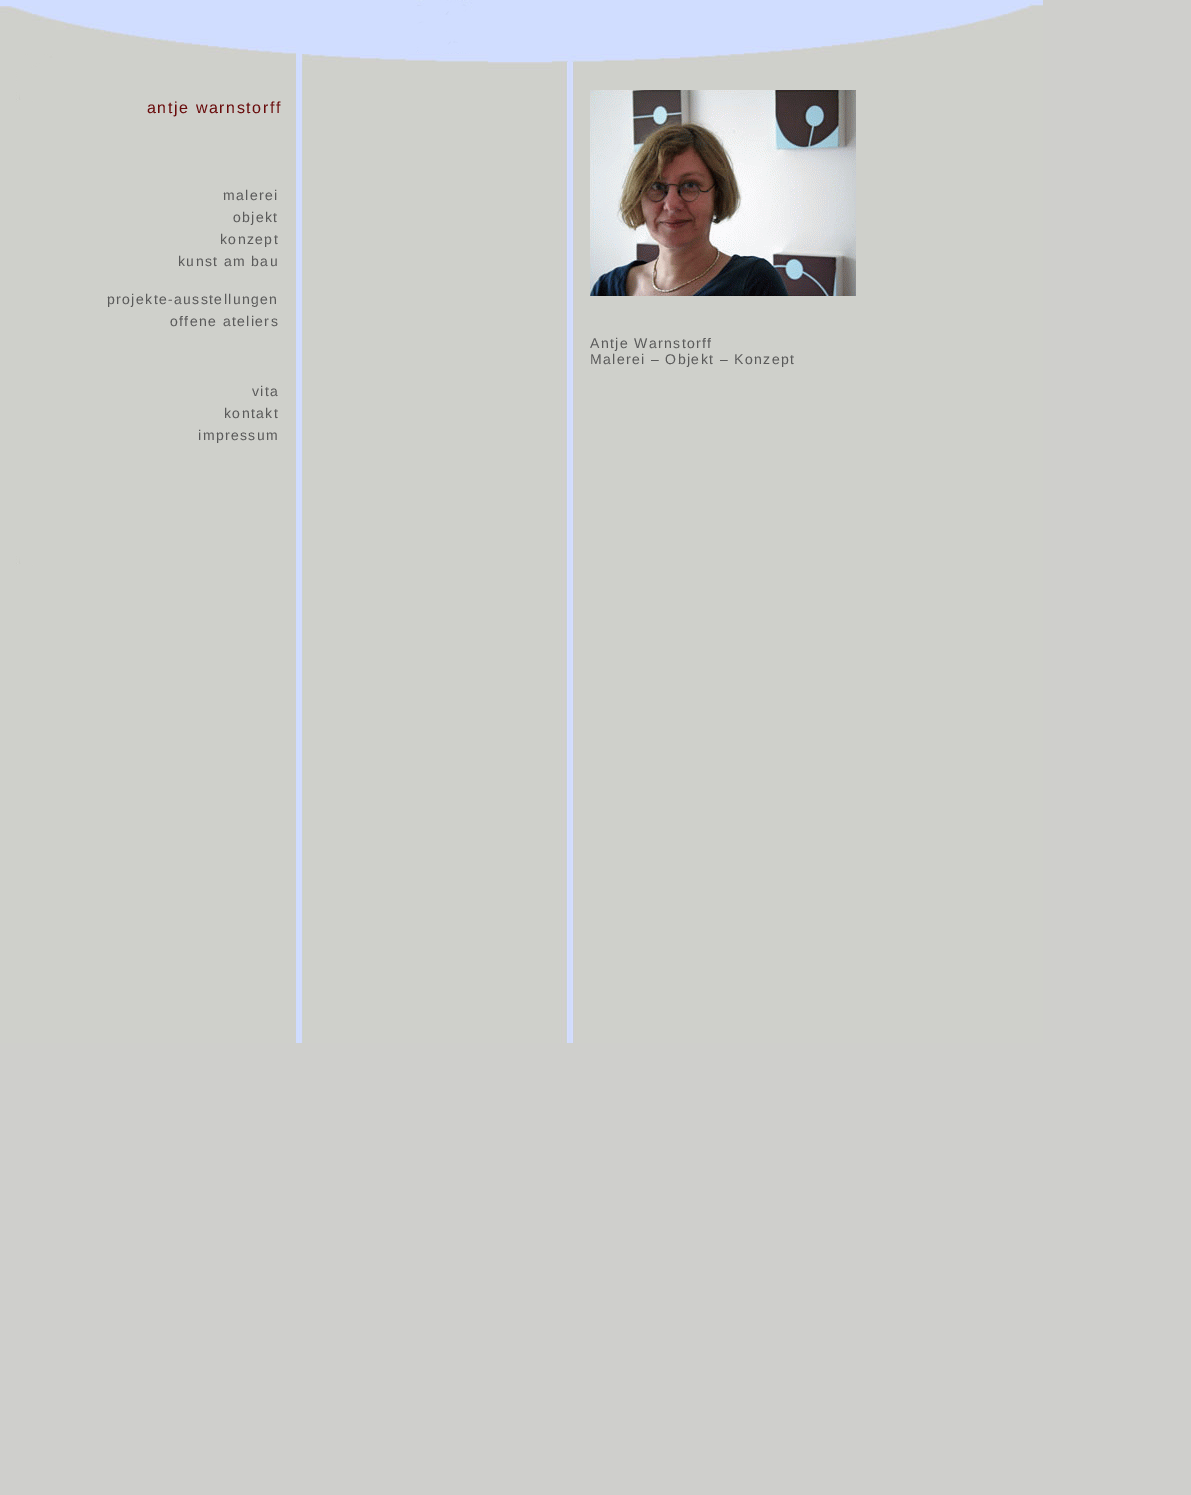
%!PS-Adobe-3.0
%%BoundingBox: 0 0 1191 1495
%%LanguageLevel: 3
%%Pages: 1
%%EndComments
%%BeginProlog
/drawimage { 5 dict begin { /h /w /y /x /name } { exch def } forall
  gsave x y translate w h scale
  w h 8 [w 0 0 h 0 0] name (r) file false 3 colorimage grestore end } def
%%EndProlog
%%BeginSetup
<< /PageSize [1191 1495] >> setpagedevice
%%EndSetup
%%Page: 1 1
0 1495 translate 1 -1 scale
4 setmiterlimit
0.812 0.812 0.8 setrgbcolor
0 0 1191 1495 rectfill
(images/1.raw) 0 0 1043 1043 drawimage
(images/2.raw) 590 90 266 206 drawimage
/LiberationSans-Regular [16 0 0 -16 0 0] selectfont
0.412 0.043 0.043 setrgbcolor
147 113 moveto 1.6 0 (antje warnstorff) ashow
/LiberationSans-Regular [14 0 0 -14 0 0] selectfont
0.353 setgray
223 200 moveto 1.4 0 (malerei) ashow
233 222 moveto 1.4 0 (objekt) ashow
220 244 moveto 1.4 0 (konzept) ashow
178 266 moveto 1.4 0 (kunst am bau) ashow
107 304 moveto 1.4 0 (projekte-ausstellungen) ashow
170 326 moveto 1.4 0 (offene ateliers) ashow
252 396 moveto 1.4 0 (vita) ashow
224 418 moveto 1.4 0 (kontakt) ashow
198 440 moveto 1.4 0 (impressum) ashow
590 348 moveto 1.4 0 (Antje Warnstorff) ashow
590 364 moveto 1.4 0 (Malerei – Objekt – Konzept) ashow
showpage
%%EOF
